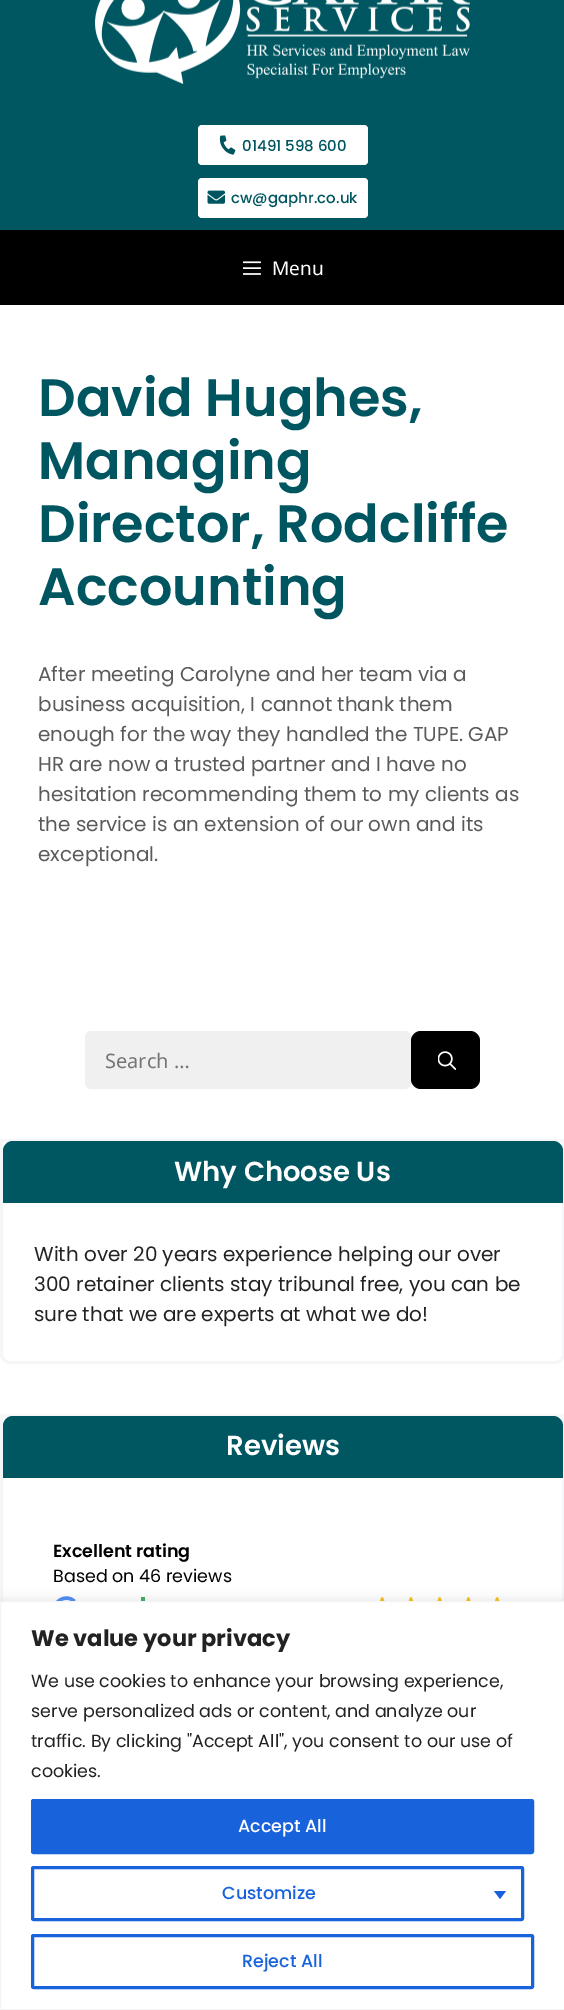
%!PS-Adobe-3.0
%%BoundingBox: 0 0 564 2010
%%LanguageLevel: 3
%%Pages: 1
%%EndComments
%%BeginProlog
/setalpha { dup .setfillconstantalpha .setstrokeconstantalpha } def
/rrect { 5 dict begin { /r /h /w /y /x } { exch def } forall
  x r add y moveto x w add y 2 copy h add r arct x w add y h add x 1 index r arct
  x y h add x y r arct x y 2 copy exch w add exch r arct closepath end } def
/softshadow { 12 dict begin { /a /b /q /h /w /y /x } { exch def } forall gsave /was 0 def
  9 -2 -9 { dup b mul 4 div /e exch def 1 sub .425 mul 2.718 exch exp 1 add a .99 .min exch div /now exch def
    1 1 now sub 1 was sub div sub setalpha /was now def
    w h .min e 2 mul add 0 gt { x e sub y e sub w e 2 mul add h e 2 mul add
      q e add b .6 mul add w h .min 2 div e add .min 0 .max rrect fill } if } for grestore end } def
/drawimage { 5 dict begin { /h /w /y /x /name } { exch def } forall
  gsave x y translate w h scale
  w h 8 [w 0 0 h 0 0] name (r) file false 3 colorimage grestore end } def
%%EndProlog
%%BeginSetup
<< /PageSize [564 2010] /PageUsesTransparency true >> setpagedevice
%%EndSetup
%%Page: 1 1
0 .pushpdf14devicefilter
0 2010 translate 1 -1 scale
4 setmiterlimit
1 setgray
0 0 564 2010 rectfill
0 0.341 0.38 setrgbcolor
0 0 564 230 rectfill
(images/1.raw) 95 0 375 84 drawimage
1 setgray
198 125 170 40 4 rrect fill
(images/2.raw) 219 135 17 20 drawimage
198 178 170 40 4 rrect fill
(images/3.raw) 207 190 18 14 drawimage
0 setgray
0 230 564 75 rectfill
(images/4.raw) 243 261 18 14 drawimage
0.941 setgray
85.5 1031.5 325 57 5.5 rrect gsave fill grestore
stroke
0 setgray
411 1031 69 58 10 rrect fill
(images/5.raw) 438 1051 18 19 drawimage
0.961 0.965 0.973 setrgbcolor
3 setlinewidth
newpath 1.5 1140.5 moveto 563.5 1140.5 lineto 563.5 1354 lineto 563.5 1358.5 559.5 1362.5 555 1362.5 curveto 10 1362.5 lineto 5.5 1362.5 1.5 1358.5 1.5 1354 curveto closepath stroke
0 0.341 0.38 setrgbcolor
newpath 13 1141 moveto 553 1141 lineto 558.5 1141 563 1145.5 563 1151 curveto 563 1203 lineto 3 1203 lineto 3 1151 lineto 3 1145.5 7.5 1141 13 1141 curveto closepath fill
0.961 0.965 0.973 setrgbcolor
1.5 1415.5 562 592 rectstroke
0 0.341 0.38 setrgbcolor
newpath 13 1416 moveto 553 1416 lineto 558.5 1416 563 1420.5 563 1426 curveto 563 1478 lineto 3 1478 lineto 3 1426 lineto 3 1420.5 7.5 1416 13 1416 curveto closepath fill
(images/6.raw) 56 1596 89 5 drawimage
(images/7.raw) 380 1597 5 4 drawimage
(images/8.raw) 408 1597 6 4 drawimage
(images/9.raw) 437 1597 5 4 drawimage
(images/10.raw) 466 1597 5 4 drawimage
(images/7.raw) 495 1597 5 4 drawimage
0.675 0.671 0.671 setrgbcolor
0 1600 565 409 0 6 0.3 softshadow
1 setgray
newpath 0.5 1601.5 moveto 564.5 1601.5 lineto 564.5 2009.5 lineto 0.5 2009.5 lineto closepath gsave fill grestore
0.957 setgray
1 setlinewidth
stroke
0.094 0.388 0.863 setrgbcolor
32.5 1800.5 500 52 1 rrect gsave fill grestore
3 setlinewidth
stroke
32.5 1867.5 490 52 1 rrect stroke
newpath 494 1891 moveto 506 1891 lineto 500 1899 lineto closepath fill
32.5 1935.5 500 52 1 rrect stroke
/Poppins-Medium [15 0 0 -15 0 0] selectfont
0 0.337 0.376 setrgbcolor
242 151 moveto (01491 598 600) show
231 203 moveto (cw@gaphr.co.uk) show
/NotoSans-Regular [19 0 0 -19 0 0] selectfont
1 setgray
272 275 moveto (Menu) show
/Poppins-SemiBold [52.5 0 0 -52.5 0 0] selectfont
0 0.337 0.376 setrgbcolor
38 416 moveto (David Hughes,) show
38 479 moveto (Managing) show
38 542 moveto (Director, Rodcliffe) show
38 605 moveto (Accounting) show
/Poppins-Regular [20 0 0 -20 0 0] selectfont
0.353 setgray
38 681 moveto (After meeting Carolyne and her team via a) show
38 711 moveto (business acquisition, I cannot thank them) show
38 741 moveto (enough for the way they handled the TUPE. GAP) show
38 771 moveto (HR are now a trusted partner and I have no) show
38 801 moveto (hesitation recommending them to my clients as) show
38 831 moveto (the service is an extension of our own and its) show
38 861 moveto (exceptional.) show
/NotoSans-Regular [20 0 0 -20 0 0] selectfont
0.459 setgray
105 1068 moveto (Search …) show
/Poppins-SemiBold [27.5 0 0 -27.5 0 0] selectfont
1 setgray
174 1181 moveto (Why Choose Us) show
/Poppins-Regular [20 0 0 -20 0 0] selectfont
0.133 setgray
34 1261 moveto (With over 20 years experience helping our over) show
34 1291 moveto (300 retainer clients stay tribunal free, you can be) show
34 1321 moveto (sure that we are experts at what we do!) show
/Poppins-SemiBold [27.5 0 0 -27.5 0 0] selectfont
1 setgray
226 1455 moveto (Reviews) show
/Poppins-SemiBold [17.5 0 0 -17.5 0 0] selectfont
0 setgray
53 1557 moveto (Excellent rating) show
/Poppins-Regular [17.5 0 0 -17.5 0 0] selectfont
53 1582 moveto (Based on 46 reviews) show
/Poppins-Bold [22.5 0 0 -22.5 0 0] selectfont
0.133 setgray
31 1646 moveto (We value your privacy) show
/Poppins-Regular [17.5 0 0 -17.5 0 0] selectfont
31 1687 moveto (We use cookies to enhance your browsing experience,) show
31 1717 moveto (serve personalized ads or content, and analyze our) show
31 1747 moveto (traffic. By clicking "Accept All", you consent to our use of) show
31 1777 moveto (cookies.) show
/Poppins-Medium [17.5 0 0 -17.5 0 0] selectfont
1 setgray
238 1832 moveto (Accept All) show
0.094 0.388 0.863 setrgbcolor
222 1899 moveto (Customize) show
242 1967 moveto (Reject All) show
.poppdf14devicefilter showpage
%%EOF
